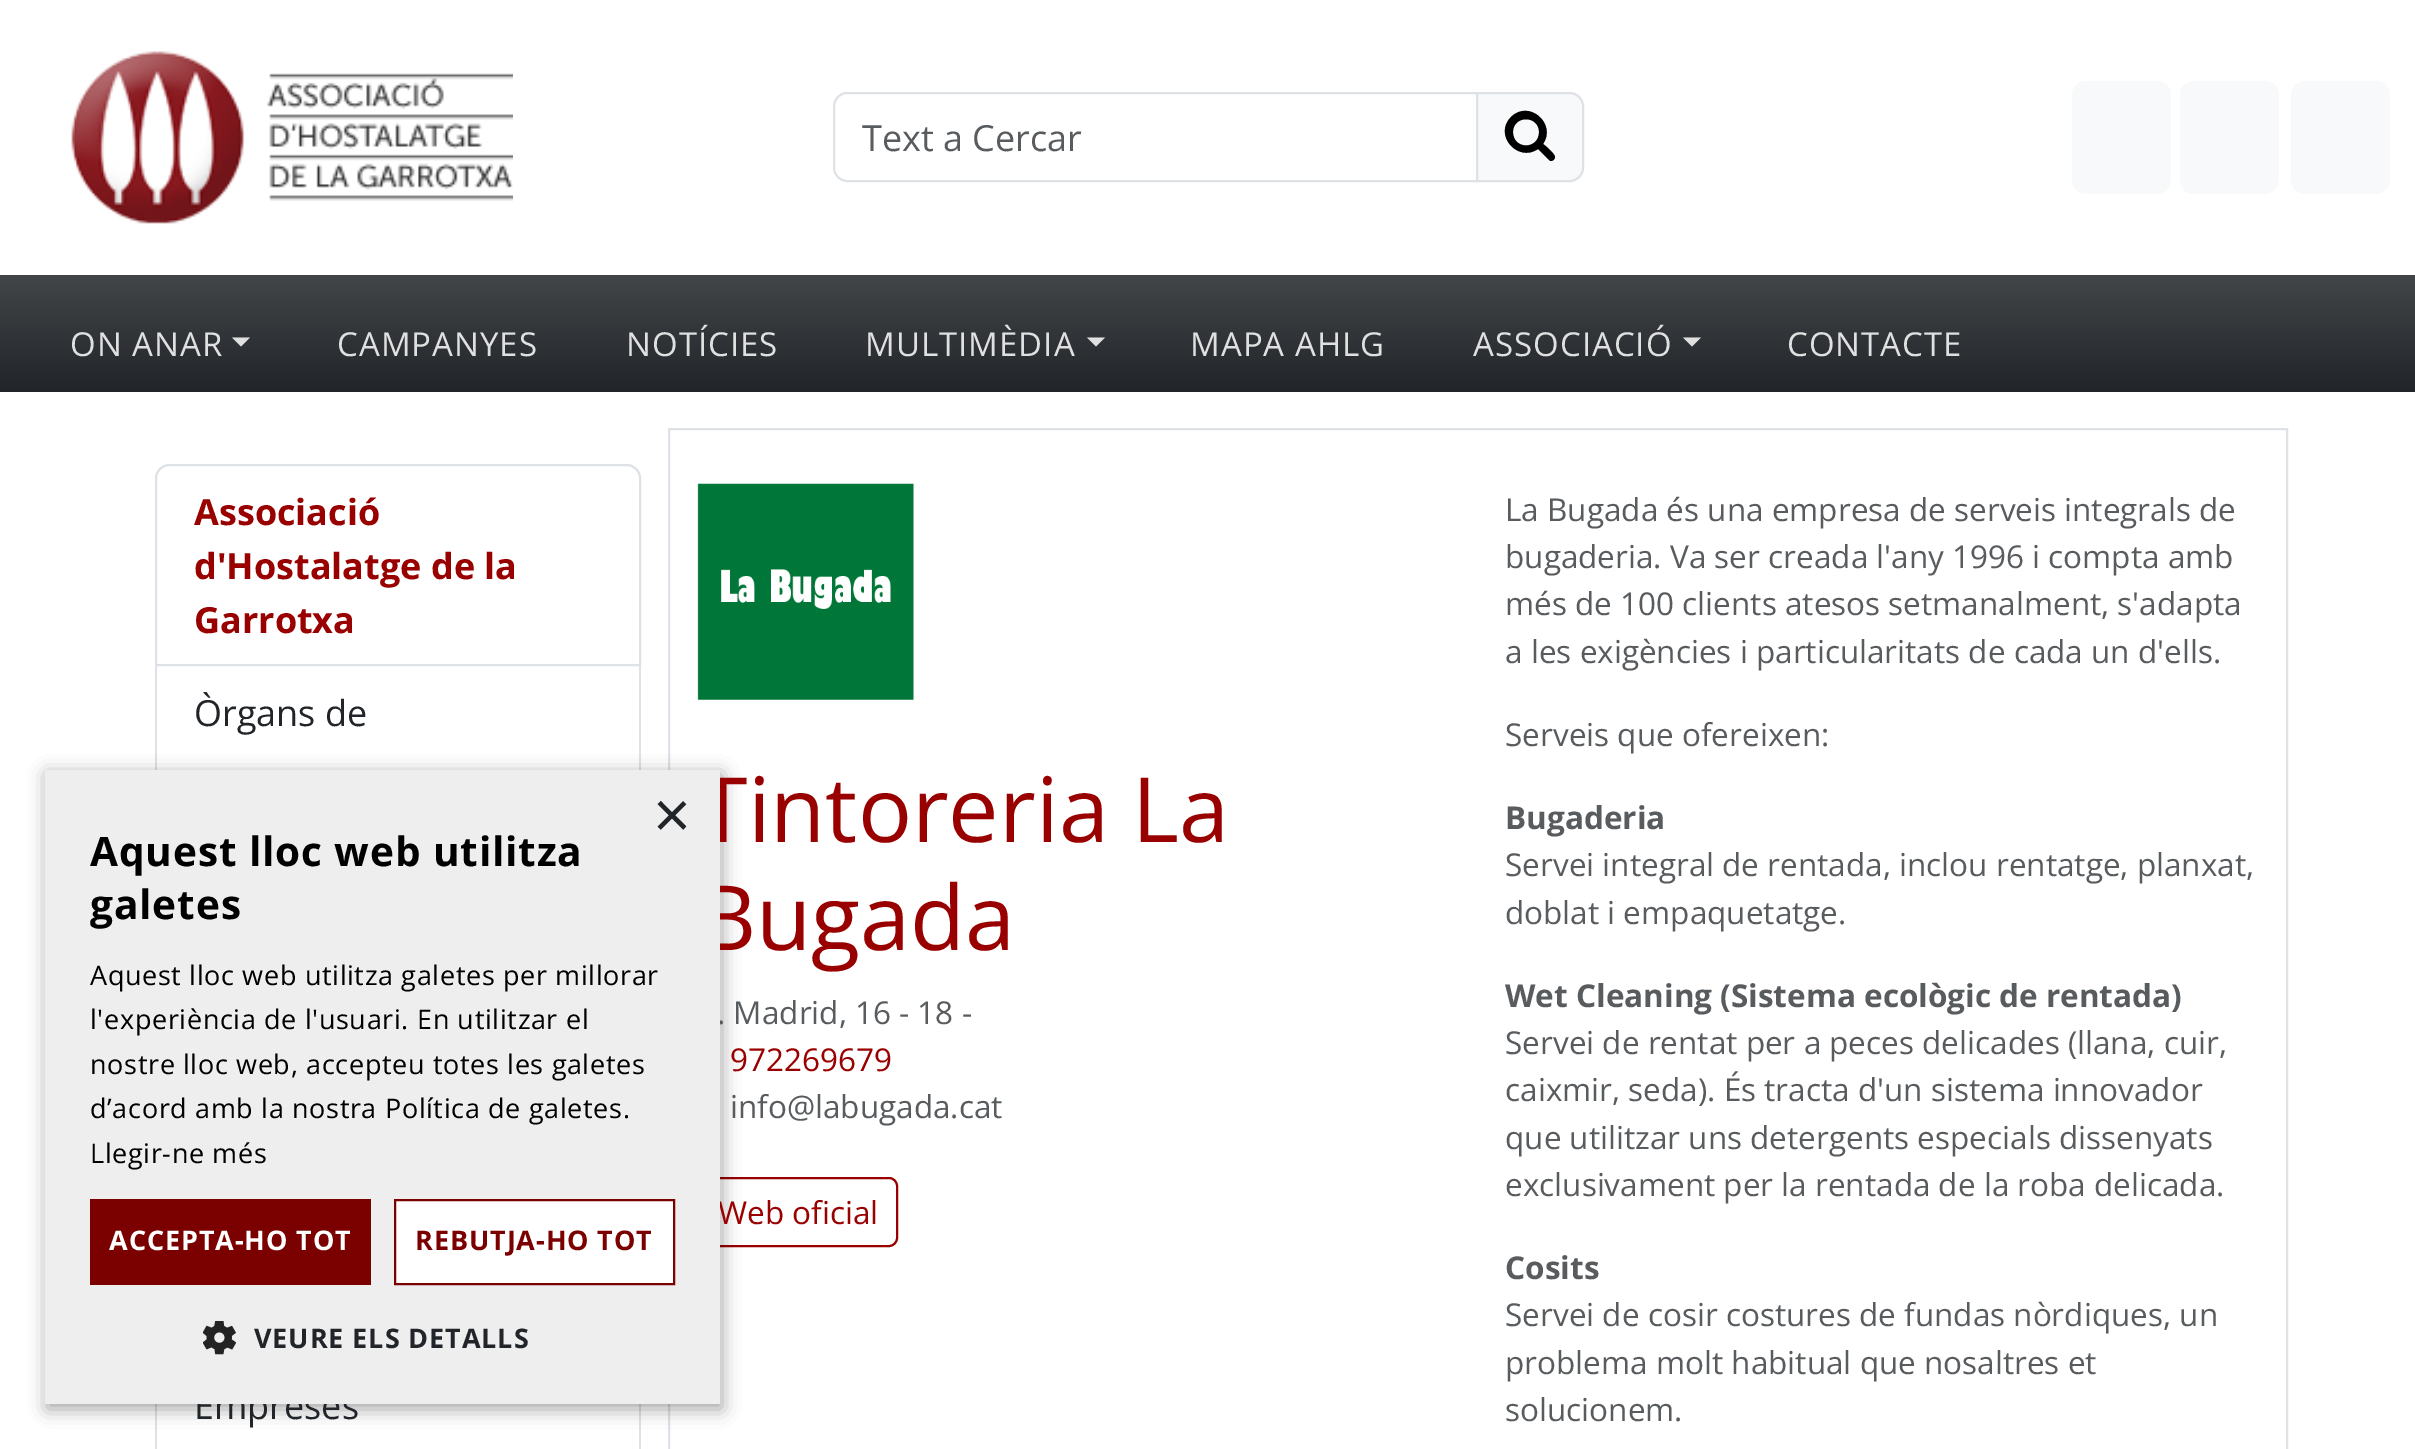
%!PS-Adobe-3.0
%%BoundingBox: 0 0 2415 1449
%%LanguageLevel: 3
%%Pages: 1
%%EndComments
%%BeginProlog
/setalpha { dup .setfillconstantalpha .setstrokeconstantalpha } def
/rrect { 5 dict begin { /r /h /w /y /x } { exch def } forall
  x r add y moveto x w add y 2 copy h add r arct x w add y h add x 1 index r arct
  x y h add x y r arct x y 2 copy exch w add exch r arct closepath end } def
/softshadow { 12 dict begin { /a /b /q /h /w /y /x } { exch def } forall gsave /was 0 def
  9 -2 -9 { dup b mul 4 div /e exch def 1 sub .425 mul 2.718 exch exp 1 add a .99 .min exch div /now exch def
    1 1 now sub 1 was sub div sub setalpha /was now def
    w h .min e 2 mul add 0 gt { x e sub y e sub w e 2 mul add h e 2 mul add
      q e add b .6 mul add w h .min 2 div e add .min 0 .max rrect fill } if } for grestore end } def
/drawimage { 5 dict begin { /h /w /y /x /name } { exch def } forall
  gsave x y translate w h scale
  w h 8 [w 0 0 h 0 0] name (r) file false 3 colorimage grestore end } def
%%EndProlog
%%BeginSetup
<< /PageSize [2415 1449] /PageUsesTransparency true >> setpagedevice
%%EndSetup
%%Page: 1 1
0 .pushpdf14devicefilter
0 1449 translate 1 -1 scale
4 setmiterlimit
1 setgray
0 0 2415 1449 rectfill
(images/1.raw) 71 51 442 173 drawimage
0.871 0.886 0.902 setrgbcolor
2 setlinewidth
newpath 847 93 moveto 1477 93 lineto 1477 181 lineto 847 181 lineto 840 181 834 175 834 168 curveto 834 106 lineto 834 99 840 93 847 93 curveto closepath stroke
0.973 0.976 0.98 setrgbcolor
newpath 1477 93 moveto 1570 93 lineto 1577 93 1583 99 1583 106 curveto 1583 168 lineto 1583 175 1577 181 1570 181 curveto 1477 181 lineto closepath gsave fill grestore
0.871 0.886 0.902 setrgbcolor
stroke
0 setgray
newpath 1539 132 moveto 1539 150 1513 150 1513 132 curveto 1513 115 1539 115 1539 132 curveto closepath 1555 157 moveto 1555 154 1546 146 1543 144 curveto 1557 124 1529 99 1511 117 curveto 1493 135 1518 163 1538 149 curveto 1548 159 lineto 1549 160 1550 161 1551 161 curveto 1553 161 1555 159 1555 157 curveto closepath fill
0.973 0.976 0.98 setrgbcolor
2072 81 99 113 14 rrect fill
2180 81 99 113 14 rrect fill
2291 81 99 113 14 rrect fill
gsave newpath 0 275 moveto 2415 275 lineto 2415 392 lineto 0 392 lineto closepath clip newpath
<< /ShadingType 2 /ColorSpace /DeviceRGB /Coords [1208 274 1208 392] /Extend [true true] /Function << /FunctionType 2 /Domain [0 1] /C0 [0.259 0.275 0.286] /C1 [0.129 0.145 0.161] /N 1 >> >> shfill grestore
0.878 0.878 0.882 setrgbcolor
newpath 232 337.5 moveto 250 337.5 lineto 241 346.5 lineto closepath fill
newpath 1087 337.5 moveto 1105 337.5 lineto 1096 346.5 lineto closepath fill
newpath 1683 337.5 moveto 1701 337.5 lineto 1692 346.5 lineto closepath fill
0.871 0.886 0.902 setrgbcolor
newpath 169 465 moveto 627 465 lineto 634 465 640 471 640 478 curveto 640 665 lineto 156 665 lineto 156 478 lineto 156 471 162 465 169 465 curveto closepath stroke
639 666 2 104 rectfill
155 666 2 104 rectfill
639 1404 2 45 rectfill
155 1404 2 45 rectfill
669 429 1618 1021 rectstroke
(images/2.raw) 697 483 217 217 drawimage
0.6 0 0 setrgbcolor
699 1178 198 68 8 rrect stroke
0 setgray
47 774 675 635 0 9 0.35 softshadow
/OpenSans-Regular [36 0 0 -36 0 0] selectfont
0.349 0.361 0.373 setrgbcolor
862 151 moveto (Text a Cercar) show
/OpenSans-Regular [33 0 0 -33 0 0] selectfont
0.878 0.878 0.882 setrgbcolor
70 356 moveto 1 0 (ON ANAR) ashow
337 356 moveto 1 0 (CAMPANYES) ashow
626 356 moveto 1 0 (NOTÍCIES) ashow
865 356 moveto 1 0 (MULTIMÈDIA) ashow
1190 356 moveto 1 0 (MAPA AHLG) ashow
1473 356 moveto 1 0 (ASSOCIACIÓ) ashow
1787 356 moveto 1 0 (CONTACTE) ashow
/OpenSans-Bold [36 0 0 -36 0 0] selectfont
0.6 0 0 setrgbcolor
194 525 moveto (Associació) show
194 579 moveto (d'Hostalatge de la) show
194 633 moveto (Garrotxa) show
/OpenSans-Regular [36 0 0 -36 0 0] selectfont
0.129 0.145 0.161 setrgbcolor
194 726 moveto (Òrgans de) show
194 1419 moveto (Empreses) show
/OpenSans-Regular [90 0 0 -90 0 0] selectfont
0.6 0 0 setrgbcolor
698 842 moveto (Tintoreria La) show
698 950 moveto (Bugada) show
/OpenSans-Regular [31.5 0 0 -31.5 0 0] selectfont
0.349 0.361 0.373 setrgbcolor
717 1024 moveto (. Madrid, 16 - 18 -) show
0.6 0 0 setrgbcolor
730 1071 moveto (972269679) show
0.349 0.361 0.373 setrgbcolor
730 1118 moveto (info@labugada.cat) show
0.6 0 0 setrgbcolor
718 1224 moveto (Web oficial) show
0.349 0.361 0.373 setrgbcolor
1505 521 moveto (La Bugada és una empresa de serveis integrals de) show
1505 568 moveto (bugaderia. Va ser creada l'any 1996 i compta amb) show
1505 615 moveto (més de 100 clients atesos setmanalment, s'adapta) show
1505 663 moveto (a les exigències i particularitats de cada un d'ells.) show
1505 746 moveto (Serveis que ofereixen:) show
/OpenSans-Bold [31.5 0 0 -31.5 0 0] selectfont
1505 829 moveto (Bugaderia) show
/OpenSans-Regular [31.5 0 0 -31.5 0 0] selectfont
1505 876 moveto (Servei integral de rentada, inclou rentatge, planxat,) show
1505 924 moveto (doblat i empaquetatge.) show
/OpenSans-Bold [31.5 0 0 -31.5 0 0] selectfont
1505 1007 moveto (Wet Cleaning \(Sistema ecològic de rentada\)) show
/OpenSans-Regular [31.5 0 0 -31.5 0 0] selectfont
1505 1054 moveto (Servei de rentat per a peces delicades \(llana, cuir,) show
1505 1101 moveto (caixmir, seda\). És tracta d'un sistema innovador) show
1505 1149 moveto (que utilitzar uns detergents especials dissenyats) show
1505 1196 moveto (exclusivament per la rentada de la roba delicada.) show
/OpenSans-Bold [31.5 0 0 -31.5 0 0] selectfont
1505 1279 moveto (Cosits) show
/OpenSans-Regular [31.5 0 0 -31.5 0 0] selectfont
1505 1326 moveto (Servei de cosir costures de fundas nòrdiques, un) show
1505 1374 moveto (problema molt habitual que nosaltres et) show
1505 1421 moveto (solucionem.) show
0.933 setgray
45 770 675 634 rectfill
/LiberationSans-Regular [65 0 0 -65 0 0] selectfont
0.129 0.145 0.161 setrgbcolor
653 837 moveto (×) show
/OpenSans-Bold [40.5 0 0 -40.5 0 0] selectfont
0 setgray
90 866 moveto 0.9 0 (Aquest lloc web utilitza) ashow
90 919 moveto 0.9 0 (galetes) ashow
/OpenSans-Regular [27 0 0 -27 0 0] selectfont
90 985 moveto 0.65 0 (Aquest lloc web utilitza galetes per millorar) ashow
90 1029 moveto 0.65 0 (l'experiència de l'usuari. En utilitzar el) ashow
90 1074 moveto 0.65 0 (nostre lloc web, accepteu totes les galetes) ashow
90 1118 moveto 0.65 0 (d’acord amb la nostra Política de galetes.) ashow
90 1163 moveto 0.65 0 (Llegir-ne més) ashow
0.482 0 0 setrgbcolor
90 1199 281 86 rectfill
/OpenSans-Bold [27 0 0 -27 0 0] selectfont
1 setgray
109 1250 moveto 0.9 0 (ACCEPTA-HO TOT) ashow
newpath 395 1200 moveto 674 1200 lineto 674 1284 lineto 395 1284 lineto closepath gsave fill grestore
0.482 0 0 setrgbcolor
stroke
415 1250 moveto 0.9 0 (REBUTJA-HO TOT) ashow
(images/3.raw) 203 1321 33 34 drawimage
0.129 0.145 0.161 setrgbcolor
254 1348 moveto 0.9 0 (VEURE ELS DETALLS) ashow
.poppdf14devicefilter showpage
%%EOF
